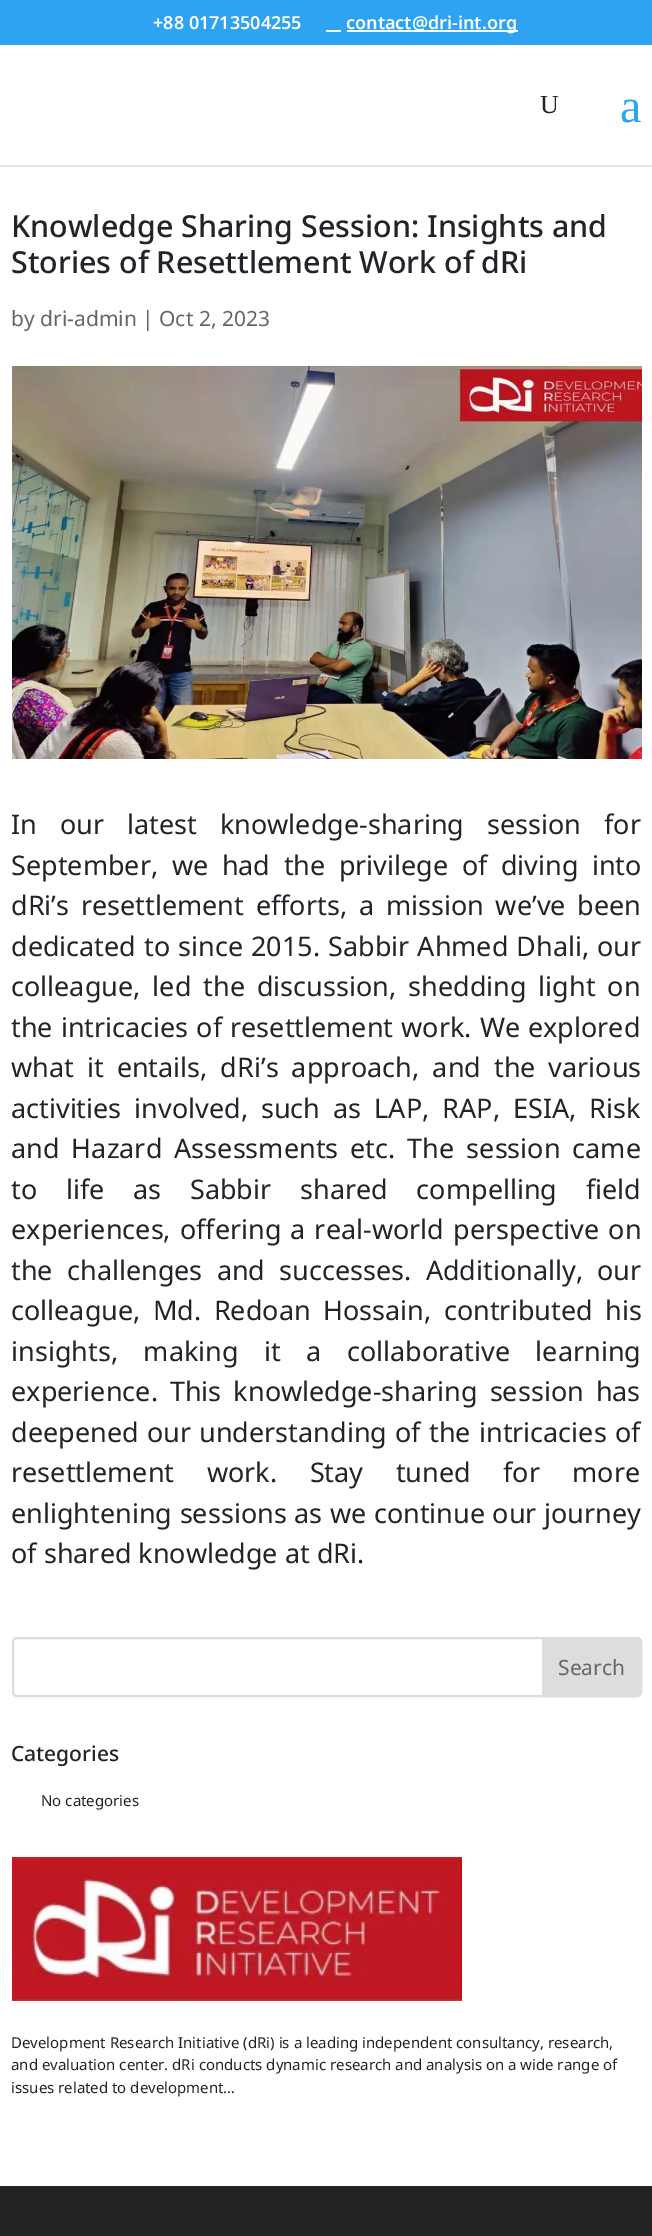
%!PS-Adobe-3.0
%%BoundingBox: 0 0 652 2236
%%LanguageLevel: 3
%%Pages: 1
%%EndComments
%%BeginProlog
/rrect { 5 dict begin { /r /h /w /y /x } { exch def } forall
  x r add y moveto x w add y 2 copy h add r arct x w add y h add x 1 index r arct
  x y h add x y r arct x y 2 copy exch w add exch r arct closepath end } def
/drawimage { 5 dict begin { /h /w /y /x /name } { exch def } forall
  gsave x y translate w h scale
  w h 8 [w 0 0 h 0 0] name (r) file false 3 colorimage grestore end } def
%%EndProlog
%%BeginSetup
<< /PageSize [652 2236] >> setpagedevice
%%EndSetup
%%Page: 1 1
0 2236 translate 1 -1 scale
4 setmiterlimit
1 setgray
0 0 652 2236 rectfill
0.18 0.639 0.949 setrgbcolor
0 0 652 45 rectfill
1 setgray
326 30 15 2 rectfill
347 30 171 2 rectfill
0.902 setgray
newpath 0 165 moveto 0 167 lineto 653 167 lineto 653 47 lineto 652 47 lineto 652 165 lineto closepath fill
(images/1.raw) 12 366 630 393 drawimage
0.867 setgray
2 setlinewidth
13 1638 628 58 4 rrect stroke
newpath 543 1638 moveto 637 1638 lineto 639 1638 641 1640 641 1642 curveto 641 1692 lineto 641 1694 639 1696 637 1696 curveto 543 1696 lineto closepath gsave fill grestore
stroke
(images/2.raw) 12 1857 450 144 drawimage
0.133 setgray
0 2186 652 50 rectfill
/NotoSans-SemiBold [18 0 0 -18 0 0] selectfont
1 setgray
153 29 moveto (+88 01713504255) show
346 29 moveto (contact@dri-int.org) show
/LiberationSerif-Regular [26 0 0 -26 0 0] selectfont
0.129 0.145 0.161 setrgbcolor
540 113 moveto (U) show
/LiberationSerif-Regular [48 0 0 -48 0 0] selectfont
0.18 0.639 0.949 setrgbcolor
620 122 moveto (a) show
/NotoSans-Medium [30.4 0 0 -30.4 0 0] selectfont
0.129 0.145 0.161 setrgbcolor
11 237 moveto (Knowledge Sharing Session: Insights and) show
11 273 moveto (Stories of Resettlement Work of dRi) show
/NotoSans-Regular [21 0 0 -21 0 0] selectfont
0.4 setgray
11 326 moveto (by dri-admin | Oct 2, 2023) show
/NotoSans-Regular [27 0 0 -27 0 0] selectfont
0.129 0.145 0.161 setrgbcolor
11 834 moveto 16 0 32 (In our latest knowledge-sharing session for) widthshow
11 875 moveto 6.5 0 32 (September, we had the privilege of diving into) widthshow
11 915 moveto 4.75 0 32 (dRi’s resettlement efforts, a mission we’ve been) widthshow
11 956 moveto 1 0 32 (dedicated to since 2015. Sabbir Ahmed Dhali, our) widthshow
11 996 moveto 5 0 32 (colleague, led the discussion, shedding light on) widthshow
11 1037 moveto 1 0 32 (the intricacies of resettlement work. We explored) widthshow
11 1077 moveto 6 0 32 (what it entails, dRi’s approach, and the various) widthshow
11 1118 moveto 6 0 32 (activities involved, such as LAP, RAP, ESIA, Risk) widthshow
11 1158 moveto 5 0 32 (and Hazard Assessments etc. The session came) widthshow
11 1199 moveto 21.75 0 32 (to life as Sabbir shared compelling field) widthshow
11 1239 moveto 2 0 32 (experiences, offering a real-world perspective on) widthshow
11 1280 moveto 7.25 0 32 (the challenges and successes. Additionally, our) widthshow
11 1320 moveto 5.5 0 32 (colleague, Md. Redoan Hossain, contributed his) widthshow
11 1361 moveto 18.5 0 32 (insights, making it a collaborative learning) widthshow
11 1401 moveto 5 0 32 (experience. This knowledge-sharing session has) widthshow
11 1442 moveto 1.25 0 32 (deepened our understanding of the intricacies of) widthshow
11 1482 moveto 25.5 0 32 (resettlement work. Stay tuned for more) widthshow
11 1523 moveto 0.5 0 32 (enlightening sessions as we continue our journey) widthshow
11 1563 moveto (of shared knowledge at dRi.) show
/NotoSans-Regular [21 0 0 -21 0 0] selectfont
0.4 setgray
558 1675 moveto (Search) show
/NotoSans-Medium [21 0 0 -21 0 0] selectfont
0.129 0.145 0.161 setrgbcolor
11 1761 moveto (Categories) show
/NotoSans-Regular [15 0 0 -15 0 0] selectfont
41 1806 moveto (No categories) show
11 2048 moveto (Development Research Initiative \(dRi\) is a leading independent consultancy, research,) show
11 2070 moveto (and evaluation center. dRi conducts dynamic research and analysis on a wide range of) show
11 2093 moveto (issues related to development…) show
showpage
%%EOF
